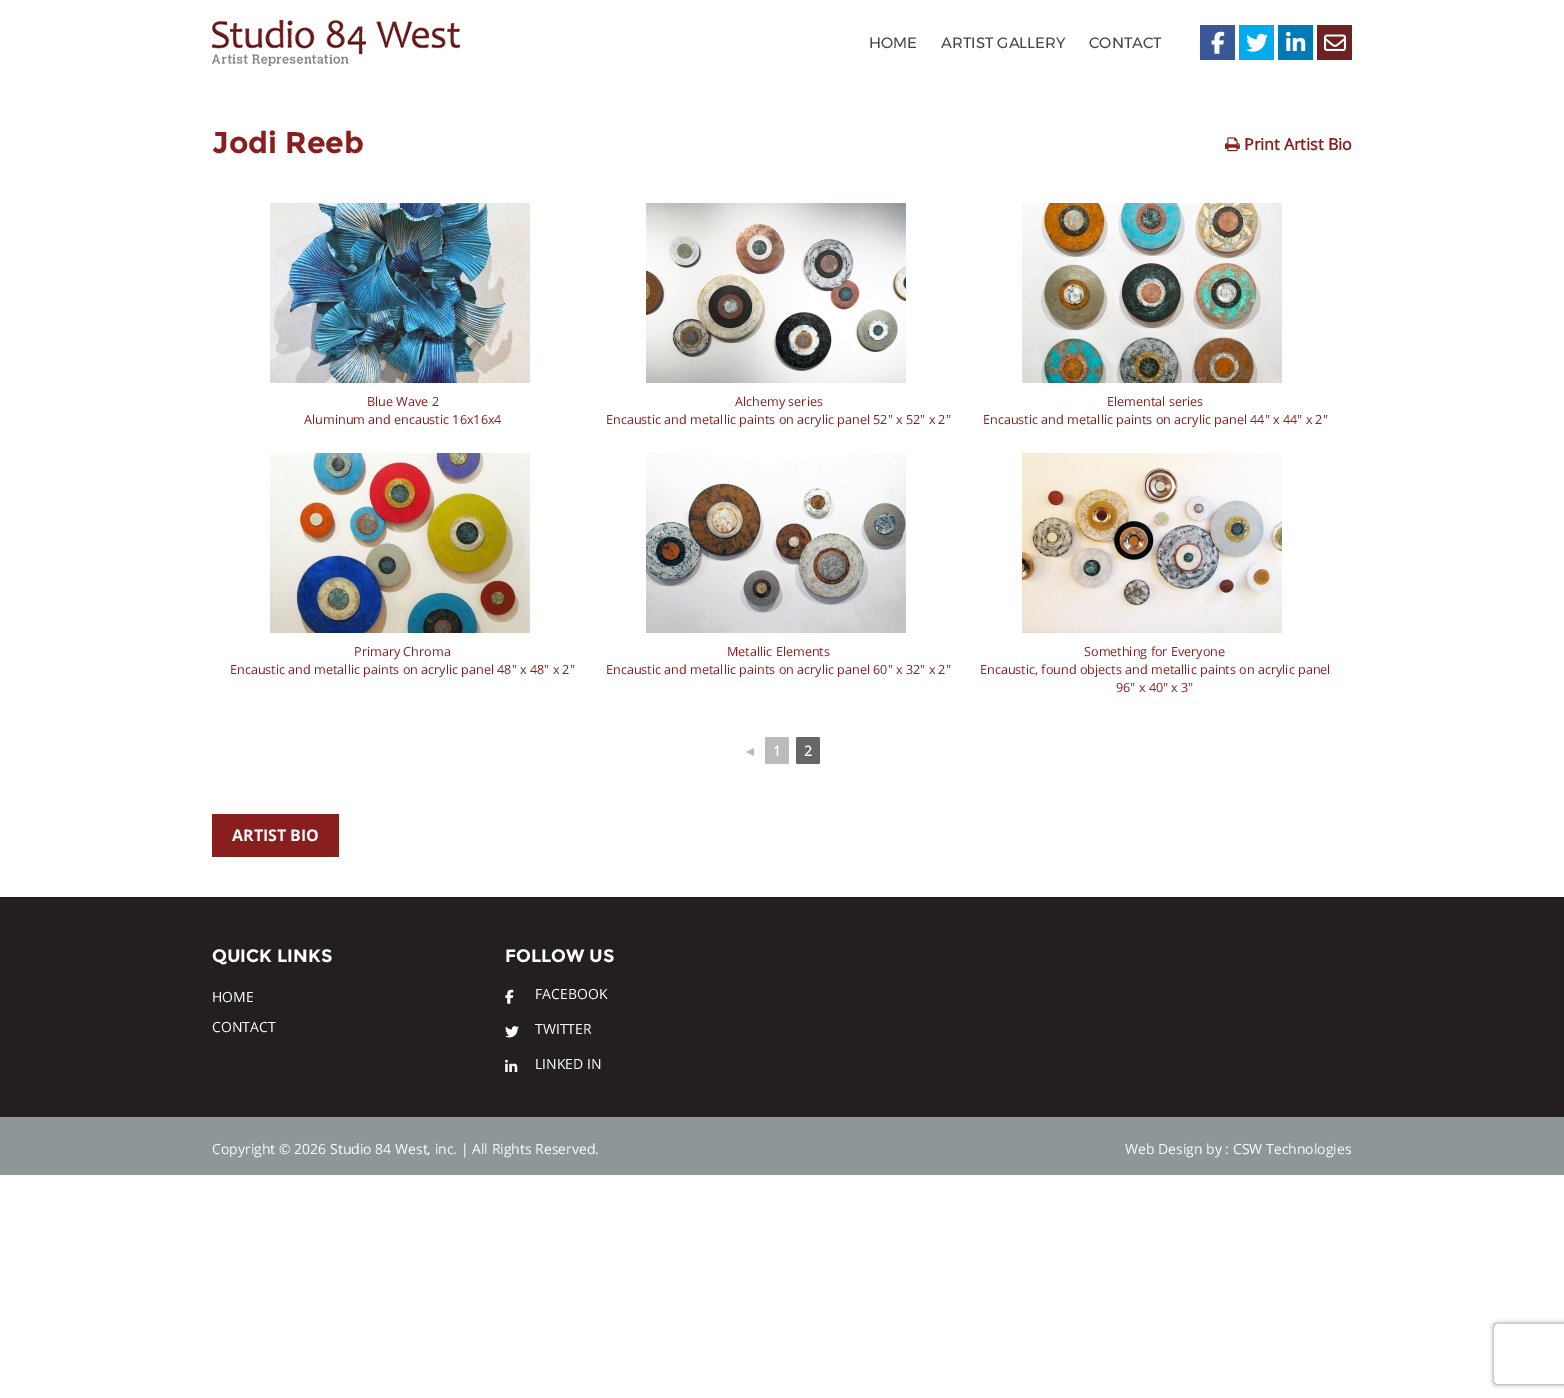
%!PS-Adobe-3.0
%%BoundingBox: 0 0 1564 1398
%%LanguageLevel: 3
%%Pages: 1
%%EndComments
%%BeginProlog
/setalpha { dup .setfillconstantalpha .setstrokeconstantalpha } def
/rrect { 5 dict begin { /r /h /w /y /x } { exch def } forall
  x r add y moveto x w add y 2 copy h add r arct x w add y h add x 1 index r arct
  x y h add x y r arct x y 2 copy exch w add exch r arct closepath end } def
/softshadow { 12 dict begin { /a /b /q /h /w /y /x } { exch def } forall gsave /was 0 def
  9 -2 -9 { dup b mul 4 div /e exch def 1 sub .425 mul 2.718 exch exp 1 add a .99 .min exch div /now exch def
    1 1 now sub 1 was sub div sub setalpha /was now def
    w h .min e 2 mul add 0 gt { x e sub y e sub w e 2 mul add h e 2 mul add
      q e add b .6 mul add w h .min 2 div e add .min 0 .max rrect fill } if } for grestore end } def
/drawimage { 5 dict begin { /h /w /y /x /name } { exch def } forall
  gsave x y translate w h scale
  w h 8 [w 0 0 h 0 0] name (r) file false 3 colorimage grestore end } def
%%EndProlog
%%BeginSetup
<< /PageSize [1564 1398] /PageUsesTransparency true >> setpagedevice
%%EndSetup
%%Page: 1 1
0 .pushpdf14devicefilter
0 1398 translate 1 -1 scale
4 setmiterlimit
1 setgray
0 0 1564 1398 rectfill
(images/1.raw) 212 20 248 46 drawimage
0.227 0.345 0.588 setrgbcolor
1200 25 35 35 rectfill
(images/2.raw) 1211 31 14 23 drawimage
0 0.675 0.929 setrgbcolor
1239 25 35 35 rectfill
(images/3.raw) 1246 33 22 19 drawimage
0 0.478 0.71 setrgbcolor
1278 25 35 35 rectfill
(images/4.raw) 1286 31 20 20 drawimage
0.427 0.133 0.133 setrgbcolor
1317 25 35 35 rectfill
(images/5.raw) 1324 34 22 17 drawimage
(images/6.raw) 1225 137 15 15 drawimage
(images/7.raw) 270 203 260 180 drawimage
(images/8.raw) 646 203 260 180 drawimage
(images/9.raw) 1022 203 260 180 drawimage
(images/10.raw) 270 453 260 180 drawimage
(images/11.raw) 646 453 260 180 drawimage
(images/12.raw) 1022 453 260 180 drawimage
0.733 setgray
765 737 24 27 2 rrect fill
0.4 setgray
796 737 24 27 2 rrect fill
0.537 0.118 0.118 setrgbcolor
212 814 127 43 rectfill
0.137 0.122 0.125 setrgbcolor
0 897 1564 220 rectfill
(images/13.raw) 505 989 9 15 drawimage
(images/14.raw) 505 1026 14 12 drawimage
(images/15.raw) 505 1059 13 13 drawimage
0.557 0.588 0.596 setrgbcolor
0 1117 1564 58 rectfill
gsave
newpath 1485 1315 moveto 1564 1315 lineto 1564 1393 lineto 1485 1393 lineto closepath 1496 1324 moveto 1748 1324 lineto 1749 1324 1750 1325 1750 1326 curveto 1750 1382 lineto 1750 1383 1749 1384 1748 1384 curveto 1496 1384 lineto 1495 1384 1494 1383 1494 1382 curveto 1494 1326 lineto 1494 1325 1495 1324 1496 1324 curveto closepath eoclip newpath
0.502 setgray
1494 1324 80 60 2 2.5 1 softshadow
grestore
/Montserrat-Regular [15 0 0 -15 0 0] selectfont
0.271 setgray
869 48 moveto (HOME) show
941 48 moveto (ARTIST GALLERY) show
1089 48 moveto (CONTACT) show
/Montserrat-Bold [30 0 0 -30 0 0] selectfont
0.537 0.118 0.118 setrgbcolor
212 153 moveto (Jodi Reeb) show
/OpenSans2-Bold [16 0 0 -16 0 0] selectfont
1244 150 moveto (Print Artist Bio) show
/OpenSans-Regular [12.6 0 0 -12.6 0 0] selectfont
367 406 moveto (Blue Wave 2) show
304 424 moveto (Aluminum and encaustic 16x16x4) show
735 406 moveto (Alchemy series) show
606 424 moveto (Encaustic and metallic paints on acrylic panel 52" x 52" x 2") show
1107 406 moveto (Elemental series) show
983 424 moveto (Encaustic and metallic paints on acrylic panel 44" x 44" x 2") show
354 656 moveto (Primary Chroma) show
230 674 moveto (Encaustic and metallic paints on acrylic panel 48" x 48" x 2") show
727 656 moveto (Metallic Elements) show
606 674 moveto (Encaustic and metallic paints on acrylic panel 60" x 32" x 2") show
1084 656 moveto (Something for Everyone) show
980 674 moveto (Encaustic, found objects and metallic paints on acrylic panel) show
1116 692 moveto (96" x 40" x 3") show
/LiberationSerif-Bold [14 0 0 -14 0 0] selectfont
0.733 setgray
743 756 moveto (◄) show
/OpenSans2-Bold [14 0 0 -14 0 0] selectfont
1 setgray
773 756 moveto (1) show
804 756 moveto (2) show
/OpenSans-Bold [16 0 0 -16 0 0] selectfont
232 841 moveto (ARTIST BIO) show
/Montserrat-Bold [18 0 0 -18 0 0] selectfont
212 962 moveto (QUICK LINKS) show
/OpenSans-Regular [14 0 0 -14 0 0] selectfont
212 1002 moveto (HOME) show
212 1032 moveto (CONTACT) show
/Montserrat-Bold [18 0 0 -18 0 0] selectfont
505 962 moveto (FOLLOW US) show
/OpenSans-Regular [14 0 0 -14 0 0] selectfont
535 999 moveto (FACEBOOK) show
535 1034 moveto (TWITTER) show
535 1069 moveto (LINKED IN) show
212 1154 moveto (Copyright © 2026 Studio 84 West, inc. | All Rights Reserved.) show
1125 1154 moveto (Web Design by : CSW Technologies) show
.poppdf14devicefilter showpage
%%EOF
